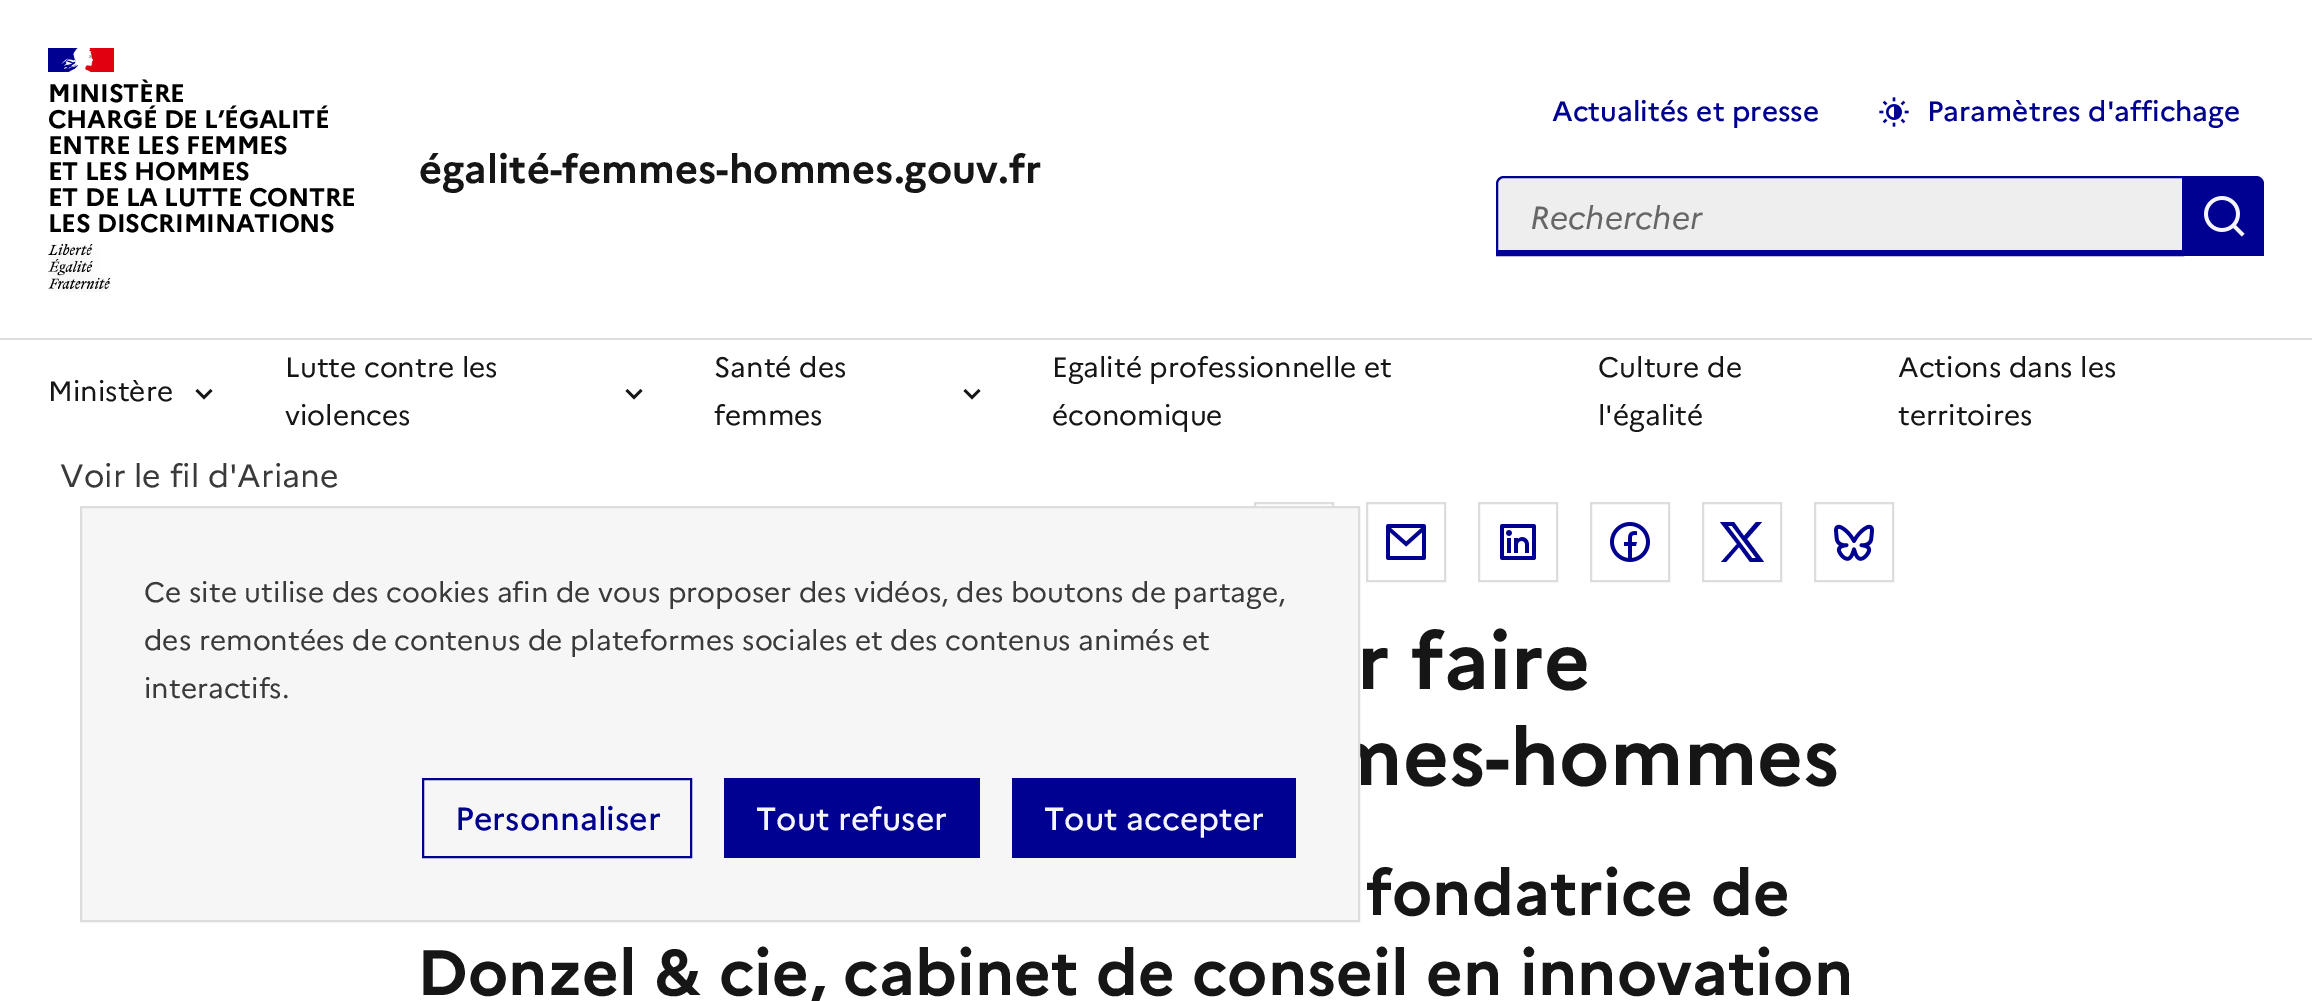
%!PS-Adobe-3.0
%%BoundingBox: 0 0 2312 1001
%%LanguageLevel: 3
%%Pages: 1
%%EndComments
%%BeginProlog
/drawimage { 5 dict begin { /h /w /y /x /name } { exch def } forall
  gsave x y translate w h scale
  w h 8 [w 0 0 h 0 0] name (r) file false 3 colorimage grestore end } def
%%EndProlog
%%BeginSetup
<< /PageSize [2312 1001] >> setpagedevice
%%EndSetup
%%Page: 1 1
0 1001 translate 1 -1 scale
4 setmiterlimit
1 setgray
0 0 2312 1001 rectfill
0 0 0.569 setrgbcolor
48 48 31 24 rectfill
0.882 0 0.059 setrgbcolor
85 48 29 24 rectfill
(images/1.raw) 61 48 32 24 drawimage
(images/2.raw) 48 244 63 48 drawimage
(images/3.raw) 1879 97 30 30 drawimage
0.933 setgray
newpath 1504 176 moveto 2184 176 lineto 2184 256 lineto 1496 256 lineto 1496 184 lineto 1496 179.5 1499.5 176 1504 176 curveto closepath fill
0 0 0.569 setrgbcolor
1498 250 684 4 rectfill
2 setlinewidth
newpath 1504 177 moveto 2183 177 lineto 2183 255 lineto 1497 255 lineto 1497 184 lineto 1497 180 1500 177 1504 177 curveto closepath stroke
newpath 2184 176 moveto 2256 176 lineto 2260.5 176 2264 179.5 2264 184 curveto 2264 256 lineto 2184 256 lineto closepath fill
(images/4.raw) 2204 196 41 41 drawimage
0.867 setgray
0 338 2312 2 rectfill
0.086 setgray
newpath 204 395.5 moveto 210.5 389 lineto 212.5 391 lineto 204 399.5 lineto 195.5 391 lineto 197.5 389 lineto closepath fill
newpath 634 395.5 moveto 640.5 389 lineto 642.5 391 lineto 634 399.5 lineto 625.5 391 lineto 627.5 389 lineto closepath fill
newpath 972 395.5 moveto 978.5 389 lineto 980.5 391 lineto 972 399.5 lineto 963.5 391 lineto 965.5 389 lineto closepath fill
0.867 setgray
1255 503 78 78 rectstroke
1367 503 78 78 rectstroke
(images/5.raw) 1386 524 40 36 drawimage
1479 503 78 78 rectstroke
(images/6.raw) 1500 524 36 36 drawimage
1591 503 78 78 rectstroke
(images/7.raw) 1610 522 40 40 drawimage
1703 503 78 78 rectstroke
0 0 0.569 setrgbcolor
newpath 1734 522 moveto 1720 522 lineto 1737 544 lineto 1721 562 lineto 1726 562 lineto 1739 547 lineto 1750 562 lineto 1764 562 lineto 1747 539 lineto 1762 522 lineto 1756 522 lineto 1744 536 lineto closepath 1752 558 moveto 1728 526 lineto 1732 526 lineto 1756 558 lineto closepath fill
0.867 setgray
1815 503 78 78 rectstroke
(images/8.raw) 1834 524 40 37 drawimage
/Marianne-Bold [25.25 0 0 -25.25 0 0] selectfont
0 setgray
48 102 moveto -0.25 0 (MINISTÈRE) ashow
48 128 moveto -0.25 0 (CHARGÉ DE L’ÉGALITÉ) ashow
48 154 moveto -0.25 0 (ENTRE LES FEMMES) ashow
48 180 moveto -0.25 0 (ET LES HOMMES) ashow
48 206 moveto -0.25 0 (ET DE LA LUTTE CONTRE) ashow
48 232 moveto -0.25 0 (LES DISCRIMINATIONS) ashow
/Marianne-Bold [40 0 0 -40 0 0] selectfont
0.086 setgray
419 183 moveto (égalité-femmes-hommes.gouv.fr) show
/Marianne-Medium [28 0 0 -28 0 0] selectfont
0 0 0.569 setrgbcolor
1552 121 moveto (Actualités et presse) show
1927 121 moveto (Paramètres d'affichage) show
/Marianne-Italic [32 0 0 -32 0 0] selectfont
0.4 setgray
1530 229 moveto (Rechercher) show
/Marianne-Regular [28 0 0 -28 0 0] selectfont
0.086 setgray
48 401 moveto (Ministère) show
285 377 moveto (Lutte contre les) show
285 425 moveto (violences) show
714 377 moveto (Santé des) show
714 425 moveto (femmes) show
1052 377 moveto (Egalité professionnelle et) show
1052 425 moveto (économique) show
1598 377 moveto (Culture de) show
1598 425 moveto (l'égalité) show
1898 377 moveto (Actions dans les) show
1898 425 moveto (territoires) show
/Marianne-Regular [32 0 0 -32 0 0] selectfont
0.227 setgray
60 487 moveto (Voir le fil d'Ariane) show
/Marianne-Bold [80 0 0 -80 0 0] selectfont
0.086 setgray
1357 689 moveto (r faire) show
1329 785 moveto (mes-hommes) show
/Marianne-Bold [64 0 0 -64 0 0] selectfont
1366 915 moveto (fondatrice de) show
417 995 moveto (Donzel & cie, cabinet de conseil en innovation) show
0.965 setgray
newpath 81 507 moveto 1359 507 lineto 1359 921 lineto 81 921 lineto closepath gsave fill grestore
0.867 setgray
stroke
/Marianne-Regular [28 0 0 -28 0 0] selectfont
0.227 setgray
144 602 moveto (Ce site utilise des cookies afin de vous proposer des vidéos, des boutons de partage,) show
144 650 moveto (des remontées de contenus de plateformes sociales et des contenus animés et) show
144 698 moveto (interactifs.) show
0 0 0.569 setrgbcolor
423 779 268 78 rectstroke
/Marianne-Medium [32 0 0 -32 0 0] selectfont
455 830 moveto (Personnaliser) show
724 778 256 80 rectfill
0.961 0.961 0.996 setrgbcolor
756 830 moveto (Tout refuser) show
0 0 0.569 setrgbcolor
1012 778 284 80 rectfill
0.961 0.961 0.996 setrgbcolor
1044 830 moveto (Tout accepter) show
showpage
%%EOF
